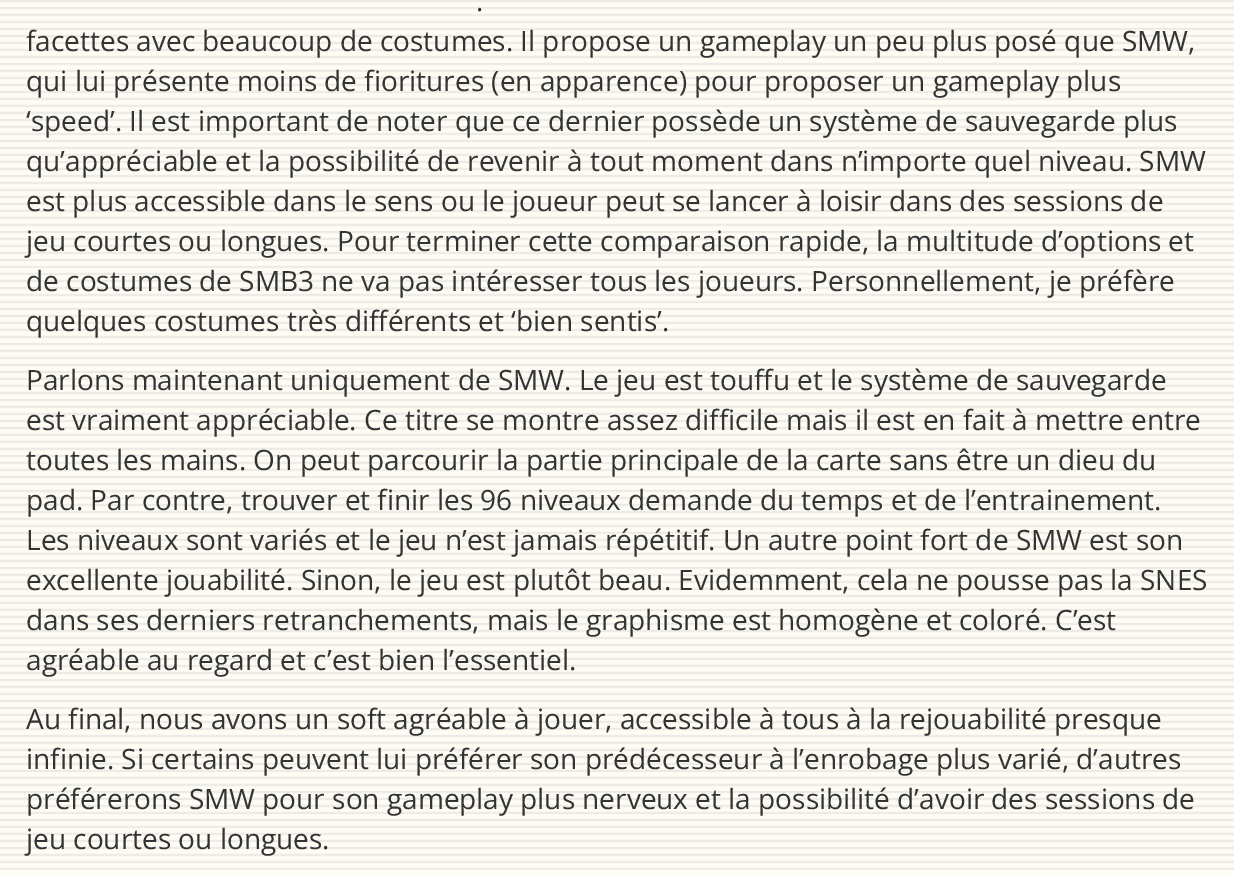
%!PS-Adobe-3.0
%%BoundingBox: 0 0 1234 874
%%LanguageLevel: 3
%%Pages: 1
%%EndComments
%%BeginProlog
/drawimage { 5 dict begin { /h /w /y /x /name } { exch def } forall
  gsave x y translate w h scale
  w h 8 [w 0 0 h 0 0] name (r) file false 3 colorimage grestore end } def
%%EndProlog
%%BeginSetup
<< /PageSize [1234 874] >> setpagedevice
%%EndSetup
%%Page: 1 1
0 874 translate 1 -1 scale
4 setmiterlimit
1 0.992 0.953 setrgbcolor
0 0 1234 874 rectfill
(images/1.raw) 0 0 1234 870 drawimage
/OpenSans-Regular [28 0 0 -28 0 0] selectfont
0.2 setgray
476 11 moveto (.) show
26 51 moveto (facettes avec beaucoup de costumes. Il propose un gameplay un peu plus posé que SMW,) show
26 91 moveto (qui lui présente moins de fioritures \(en apparence\) pour proposer un gameplay plus) show
26 131 moveto (‘speed’. Il est important de noter que ce dernier possède un système de sauvegarde plus) show
26 171 moveto (qu’appréciable et la possibilité de revenir à tout moment dans n’importe quel niveau. SMW) show
26 211 moveto (est plus accessible dans le sens ou le joueur peut se lancer à loisir dans des sessions de) show
26 251 moveto (jeu courtes ou longues. Pour terminer cette comparaison rapide, la multitude d’options et) show
26 291 moveto (de costumes de SMB3 ne va pas intéresser tous les joueurs. Personnellement, je préfère) show
26 331 moveto (quelques costumes très différents et ‘bien sentis’.) show
26 390 moveto (Parlons maintenant uniquement de SMW. Le jeu est touffu et le système de sauvegarde) show
26 430 moveto (est vraiment appréciable. Ce titre se montre assez difficile mais il est en fait à mettre entre) show
26 470 moveto (toutes les mains. On peut parcourir la partie principale de la carte sans être un dieu du) show
26 510 moveto (pad. Par contre, trouver et finir les 96 niveaux demande du temps et de l’entrainement.) show
26 550 moveto (Les niveaux sont variés et le jeu n’est jamais répétitif. Un autre point fort de SMW est son) show
26 590 moveto (excellente jouabilité. Sinon, le jeu est plutôt beau. Evidemment, cela ne pousse pas la SNES) show
26 630 moveto (dans ses derniers retranchements, mais le graphisme est homogène et coloré. C’est) show
26 670 moveto (agréable au regard et c’est bien l’essentiel.) show
26 729 moveto (Au final, nous avons un soft agréable à jouer, accessible à tous à la rejouabilité presque) show
26 769 moveto (infinie. Si certains peuvent lui préférer son prédécesseur à l’enrobage plus varié, d’autres) show
26 809 moveto (préférerons SMW pour son gameplay plus nerveux et la possibilité d’avoir des sessions de) show
26 849 moveto (jeu courtes ou longues.) show
showpage
%%EOF
